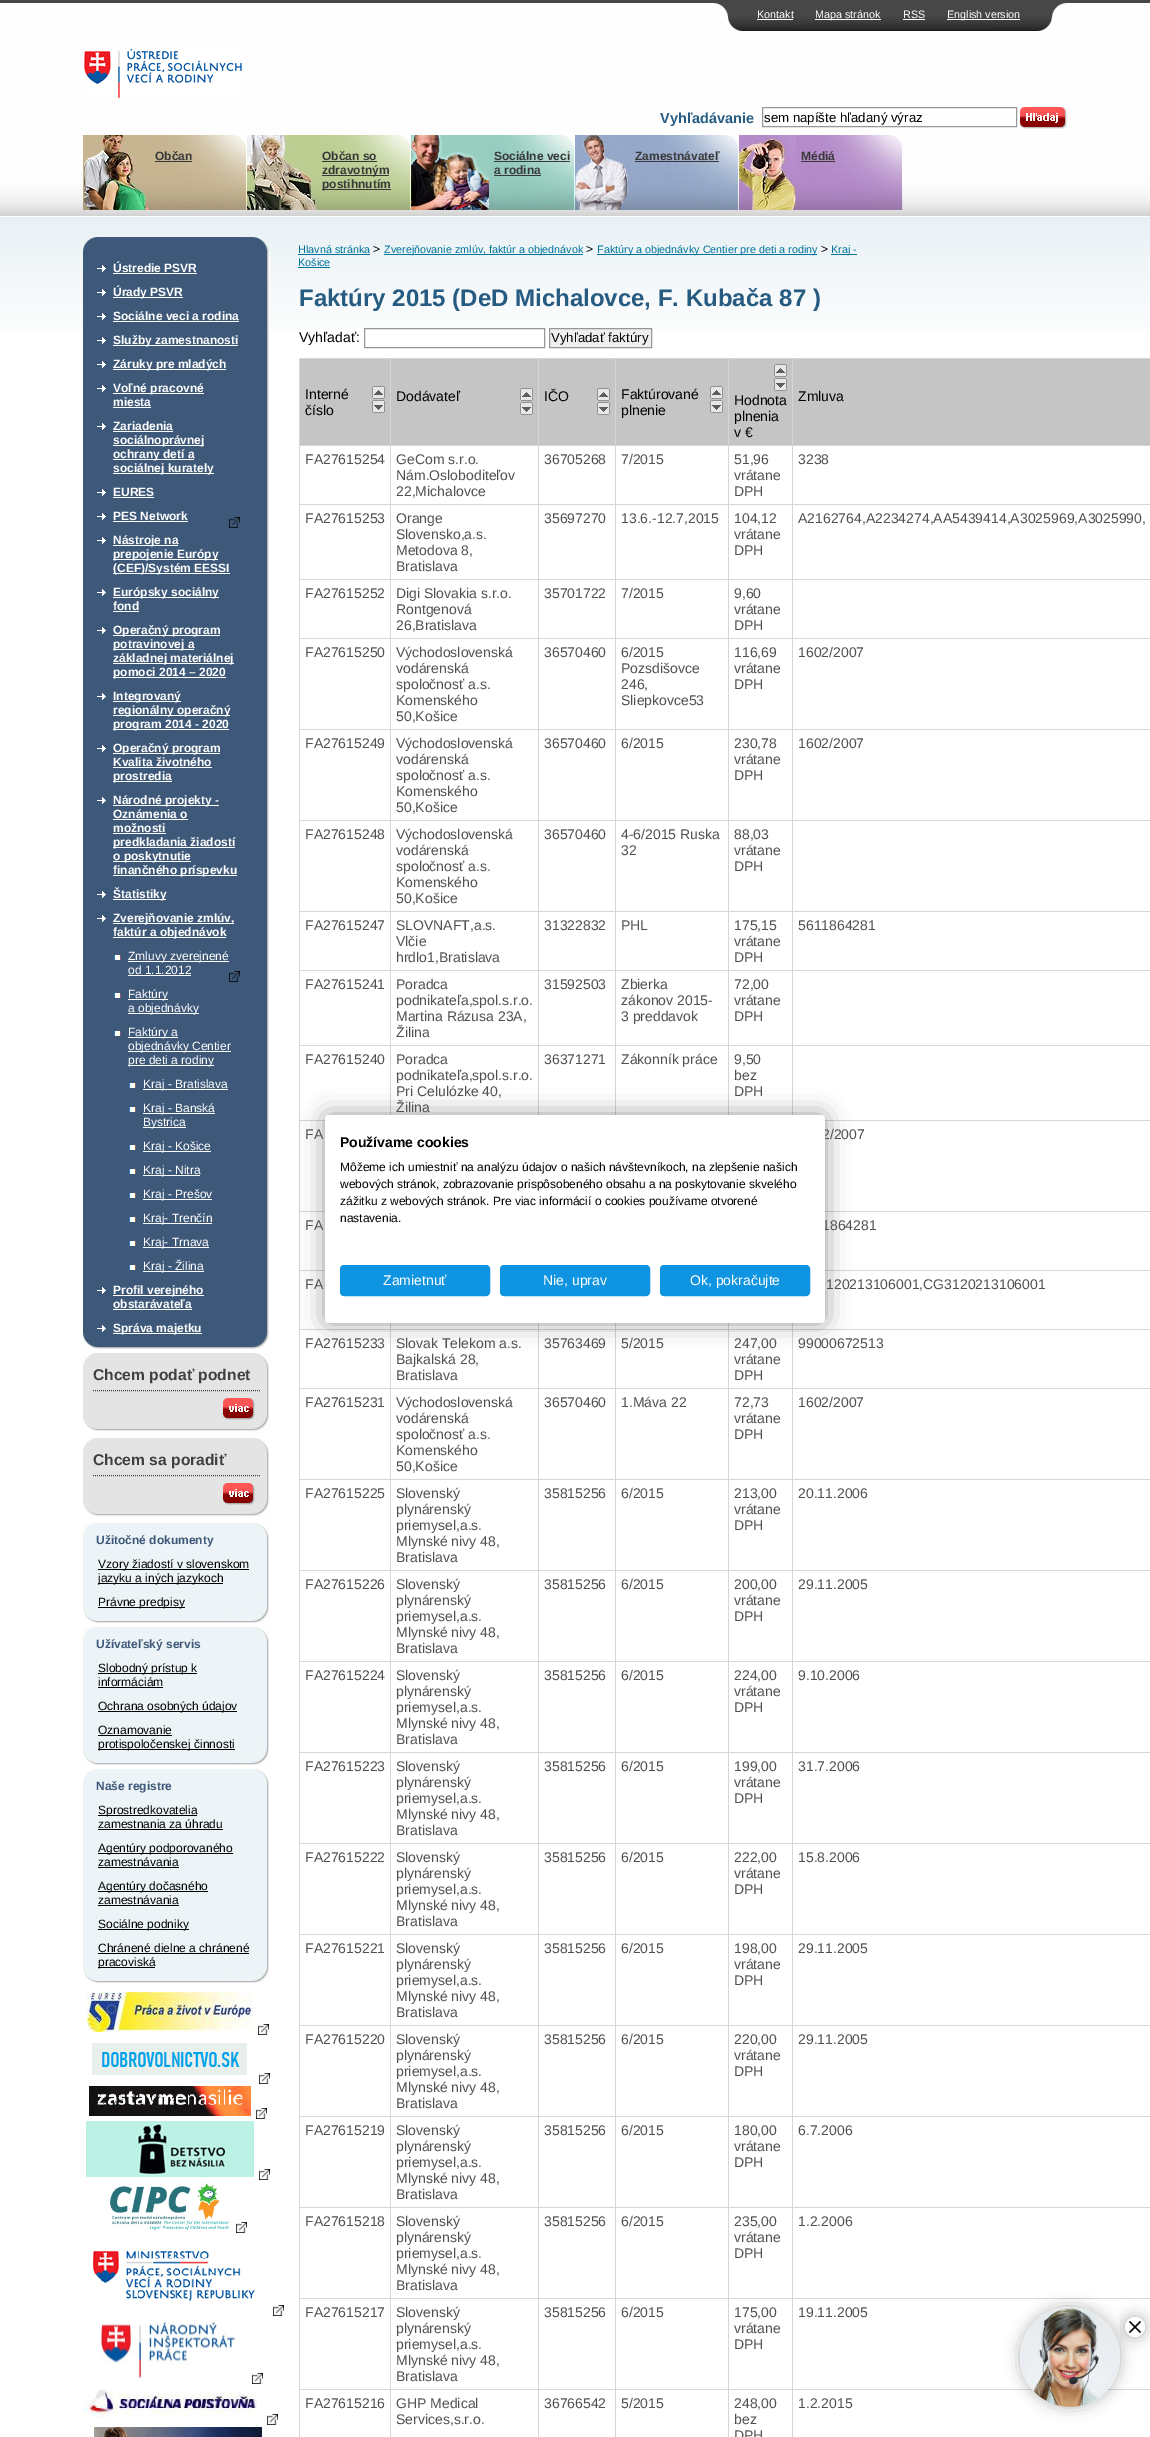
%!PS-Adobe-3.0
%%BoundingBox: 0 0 1150 2437
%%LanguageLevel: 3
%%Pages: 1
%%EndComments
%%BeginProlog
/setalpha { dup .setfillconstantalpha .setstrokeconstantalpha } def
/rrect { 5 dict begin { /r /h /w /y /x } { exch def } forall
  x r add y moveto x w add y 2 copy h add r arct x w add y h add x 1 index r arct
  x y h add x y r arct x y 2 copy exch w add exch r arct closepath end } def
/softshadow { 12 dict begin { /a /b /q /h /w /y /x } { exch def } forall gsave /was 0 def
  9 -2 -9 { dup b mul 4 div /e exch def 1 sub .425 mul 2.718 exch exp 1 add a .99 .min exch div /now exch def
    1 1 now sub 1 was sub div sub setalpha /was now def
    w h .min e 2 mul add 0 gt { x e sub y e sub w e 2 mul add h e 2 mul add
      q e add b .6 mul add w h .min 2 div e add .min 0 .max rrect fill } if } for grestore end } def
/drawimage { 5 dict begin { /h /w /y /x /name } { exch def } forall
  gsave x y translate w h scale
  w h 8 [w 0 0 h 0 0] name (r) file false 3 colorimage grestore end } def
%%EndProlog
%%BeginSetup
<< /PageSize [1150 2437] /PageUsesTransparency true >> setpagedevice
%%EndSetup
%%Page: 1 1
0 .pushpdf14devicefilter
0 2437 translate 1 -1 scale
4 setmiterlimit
1 setgray
0 0 1150 2437 rectfill
(images/1.raw) 0 0 1150 329 drawimage
(images/2.raw) 713 3 354 28 drawimage
757 19 36 1 rectfill
815 19 66 1 rectfill
903 19 22 1 rectfill
947 19 73 1 rectfill
(images/3.raw) 84 48 158 50 drawimage
0.592 setgray
762.5 107.5 254 19 rectstroke
(images/4.raw) 1020 107 47 22 drawimage
(images/5.raw) 150 135 97 75 drawimage
(images/6.raw) 83 135 67 75 drawimage
0.22 setgray
155 161 37 1 rectfill
(images/7.raw) 317 135 94 75 drawimage
(images/8.raw) 247 135 70 75 drawimage
322 161 55 1 rectfill
322 175 67 1 rectfill
322 189 69 1 rectfill
(images/9.raw) 489 135 86 75 drawimage
(images/10.raw) 411 135 78 75 drawimage
494 161 76 1 rectfill
494 175 47 1 rectfill
(images/11.raw) 630 135 109 75 drawimage
(images/12.raw) 575 135 55 75 drawimage
635 161 84 1 rectfill
(images/13.raw) 796 135 107 75 drawimage
(images/14.raw) 739 135 57 75 drawimage
801 161 34 1 rectfill
(images/15.raw) 83 237 187 1113 drawimage
(images/16.raw) 239 237 31 14 drawimage
(images/17.raw) 83 237 15 14 drawimage
(images/18.raw) 83 1333 15 16 drawimage
(images/19.raw) 97 265 9 7 drawimage
1 setgray
113 273 84 1 rectfill
(images/19.raw) 97 289 9 7 drawimage
113 297 70 1 rectfill
(images/19.raw) 97 313 9 7 drawimage
113 321 126 1 rectfill
(images/19.raw) 97 337 9 7 drawimage
113 345 125 1 rectfill
(images/19.raw) 97 361 9 7 drawimage
113 369 113 1 rectfill
(images/19.raw) 97 385 9 7 drawimage
113 393 91 1 rectfill
113 407 38 1 rectfill
(images/19.raw) 97 423 9 7 drawimage
113 431 60 1 rectfill
113 445 91 1 rectfill
113 459 81 1 rectfill
113 473 101 1 rectfill
(images/19.raw) 97 489 9 7 drawimage
113 497 41 1 rectfill
(images/19.raw) 97 513 9 7 drawimage
(images/20.raw) 229 517 11 11 drawimage
113 521 75 1 rectfill
(images/19.raw) 97 537 9 7 drawimage
113 545 65 1 rectfill
113 559 105 1 rectfill
113 573 117 1 rectfill
(images/19.raw) 97 589 9 7 drawimage
113 597 106 1 rectfill
113 611 26 1 rectfill
(images/19.raw) 97 627 9 7 drawimage
113 635 107 1 rectfill
113 649 81 1 rectfill
113 663 121 1 rectfill
113 677 113 1 rectfill
(images/19.raw) 97 693 9 7 drawimage
113 701 68 1 rectfill
113 715 117 1 rectfill
113 729 116 1 rectfill
(images/19.raw) 97 745 9 7 drawimage
113 753 107 1 rectfill
113 767 99 1 rectfill
113 781 59 1 rectfill
(images/19.raw) 97 797 9 7 drawimage
113 805 106 1 rectfill
113 819 75 1 rectfill
113 833 53 1 rectfill
113 847 122 1 rectfill
113 861 78 1 rectfill
113 875 124 1 rectfill
(images/19.raw) 97 891 9 7 drawimage
113 899 53 1 rectfill
(images/19.raw) 97 915 9 7 drawimage
113 923 121 1 rectfill
113 937 113 1 rectfill
(images/21.raw) 114 955 7 5 drawimage
(images/20.raw) 229 971 11 11 drawimage
128 961 101 1 rectfill
128 975 63 1 rectfill
(images/21.raw) 114 993 7 5 drawimage
128 999 40 1 rectfill
128 1013 71 1 rectfill
(images/21.raw) 114 1031 7 5 drawimage
128 1037 50 1 rectfill
128 1051 103 1 rectfill
128 1065 86 1 rectfill
(images/21.raw) 129 1083 7 5 drawimage
143 1089 85 1 rectfill
(images/21.raw) 129 1107 7 5 drawimage
143 1113 72 1 rectfill
143 1127 43 1 rectfill
(images/21.raw) 129 1145 7 5 drawimage
143 1151 68 1 rectfill
(images/21.raw) 129 1169 7 5 drawimage
143 1175 57 1 rectfill
(images/21.raw) 129 1193 7 5 drawimage
143 1199 69 1 rectfill
(images/21.raw) 129 1217 7 5 drawimage
143 1223 69 1 rectfill
(images/21.raw) 129 1241 7 5 drawimage
143 1247 66 1 rectfill
(images/21.raw) 129 1265 7 5 drawimage
143 1271 61 1 rectfill
(images/19.raw) 97 1287 9 7 drawimage
113 1295 91 1 rectfill
113 1309 79 1 rectfill
(images/19.raw) 97 1325 9 7 drawimage
113 1333 89 1 rectfill
(images/22.raw) 83 1353 187 79 drawimage
(images/23.raw) 256 1353 13 15 drawimage
(images/24.raw) 83 1353 12 13 drawimage
0.251 setgray
[1 1] 0 setdash
newpath 93 1390.5 moveto 260 1390.5 lineto stroke
(images/25.raw) 83 1417 15 15 drawimage
(images/26.raw) 223 1398 32 22 drawimage
(images/22.raw) 83 1438 187 79 drawimage
(images/23.raw) 256 1438 13 15 drawimage
(images/24.raw) 83 1438 12 13 drawimage
newpath 93 1475.5 moveto 260 1475.5 lineto stroke
(images/25.raw) 83 1502 15 15 drawimage
(images/26.raw) 223 1483 32 22 drawimage
(images/27.raw) 83 1523 186 101 drawimage
(images/28.raw) 255 1523 14 15 drawimage
(images/29.raw) 83 1523 12 13 drawimage
(images/30.raw) 83 1608 15 15 drawimage
0 setgray
98 1569 151 1 rectfill
98 1583 125 1 rectfill
98 1607 87 1 rectfill
(images/31.raw) 83 1627 186 139 drawimage
(images/28.raw) 255 1627 14 15 drawimage
(images/29.raw) 83 1627 12 13 drawimage
(images/30.raw) 83 1750 15 15 drawimage
98 1673 99 1 rectfill
98 1687 65 1 rectfill
98 1711 139 1 rectfill
98 1735 74 1 rectfill
98 1749 137 1 rectfill
(images/32.raw) 83 1769 186 215 drawimage
(images/28.raw) 255 1769 14 15 drawimage
(images/29.raw) 83 1769 12 13 drawimage
(images/30.raw) 83 1968 15 15 drawimage
98 1815 99 1 rectfill
98 1829 125 1 rectfill
98 1853 135 1 rectfill
98 1867 81 1 rectfill
98 1891 110 1 rectfill
98 1905 81 1 rectfill
98 1929 91 1 rectfill
98 1953 151 1 rectfill
98 1967 57 1 rectfill
(images/33.raw) 87 1992 166 40 drawimage
(images/34.raw) 258 2024 11 11 drawimage
(images/35.raw) 92 2043 155 32 drawimage
(images/34.raw) 259 2073 11 11 drawimage
(images/36.raw) 89 2086 162 30 drawimage
(images/34.raw) 256 2108 11 11 drawimage
(images/37.raw) 86 2121 168 56 drawimage
(images/34.raw) 259 2169 11 11 drawimage
(images/38.raw) 110 2183 119 47 drawimage
(images/34.raw) 236 2222 11 11 drawimage
(images/39.raw) 92 2251 163 51 drawimage
(images/34.raw) 273 2305 11 11 drawimage
(images/40.raw) 99 2318 136 61 drawimage
(images/34.raw) 252 2373 11 11 drawimage
(images/41.raw) 83 2388 174 29 drawimage
(images/34.raw) 267 2414 11 11 drawimage
(images/42.raw) 94 2427 168 10 drawimage
0 0.459 0.612 setrgbcolor
298 254 72 1 rectfill
384 254 199 1 rectfill
597 254 220 1 rectfill
831 254 26 1 rectfill
298 267 32 1 rectfill
0.592 setgray
[] 0 setdash
364.5 328.5 180 19 rectstroke
0.937 setgray
newpath 549.5 328.5 moveto 651.5 328.5 lineto 651.5 347.5 lineto 549.5 347.5 lineto closepath gsave fill grestore
0.592 setgray
stroke
0.839 setgray
793 358 357 1 rectfill
299 358 1 2079 rectfill
0.773 setgray
300 359 90 86 rectfill
0.839 setgray
299 358 494 1 rectfill
792 445 358 1 rectfill
792 504 358 1 rectfill
792 579 358 1 rectfill
792 638 358 1 rectfill
792 729 358 1 rectfill
792 820 358 1 rectfill
792 911 358 1 rectfill
792 970 358 1 rectfill
792 1045 358 1 rectfill
792 1045 1 76 rectfill
728 1045 65 1 rectfill
792 970 1 76 rectfill
728 970 65 1 rectfill
792 911 1 60 rectfill
728 911 65 1 rectfill
792 820 1 92 rectfill
728 820 65 1 rectfill
792 729 1 92 rectfill
728 729 65 1 rectfill
792 638 1 92 rectfill
728 638 65 1 rectfill
792 579 1 60 rectfill
728 579 65 1 rectfill
792 504 1 76 rectfill
728 504 65 1 rectfill
792 445 1 60 rectfill
728 445 65 1 rectfill
728 1045 1 76 rectfill
615 1045 114 1 rectfill
728 970 1 76 rectfill
615 970 114 1 rectfill
728 911 1 60 rectfill
615 911 114 1 rectfill
728 820 1 92 rectfill
615 820 114 1 rectfill
728 729 1 92 rectfill
615 729 114 1 rectfill
728 638 1 92 rectfill
615 638 114 1 rectfill
728 579 1 60 rectfill
615 579 114 1 rectfill
728 504 1 76 rectfill
615 504 114 1 rectfill
728 445 1 60 rectfill
615 445 114 1 rectfill
615 1045 1 76 rectfill
538 1045 78 1 rectfill
615 970 1 76 rectfill
538 970 78 1 rectfill
615 911 1 60 rectfill
538 911 78 1 rectfill
615 820 1 92 rectfill
538 820 78 1 rectfill
615 729 1 92 rectfill
538 729 78 1 rectfill
615 638 1 92 rectfill
538 638 78 1 rectfill
615 579 1 60 rectfill
538 579 78 1 rectfill
615 504 1 76 rectfill
538 504 78 1 rectfill
615 445 1 60 rectfill
538 445 78 1 rectfill
538 1045 1 76 rectfill
390 1045 149 1 rectfill
538 970 1 76 rectfill
390 970 149 1 rectfill
538 911 1 60 rectfill
390 911 149 1 rectfill
538 820 1 92 rectfill
390 820 149 1 rectfill
538 729 1 92 rectfill
390 729 149 1 rectfill
538 638 1 92 rectfill
390 638 149 1 rectfill
538 579 1 60 rectfill
390 579 149 1 rectfill
538 504 1 76 rectfill
390 504 149 1 rectfill
538 445 1 60 rectfill
390 445 149 1 rectfill
390 1045 1 76 rectfill
299 1045 92 1 rectfill
390 970 1 76 rectfill
299 970 92 1 rectfill
390 911 1 60 rectfill
299 911 92 1 rectfill
390 820 1 92 rectfill
299 820 92 1 rectfill
390 729 1 92 rectfill
299 729 92 1 rectfill
390 638 1 92 rectfill
299 638 92 1 rectfill
390 579 1 60 rectfill
299 579 92 1 rectfill
390 504 1 76 rectfill
299 504 92 1 rectfill
390 445 1 60 rectfill
299 445 92 1 rectfill
390 358 1 88 rectfill
(images/43.raw) 372 386 13 13 drawimage
(images/44.raw) 372 400 13 13 drawimage
0.773 setgray
391 359 147 86 rectfill
0.839 setgray
538 358 1 88 rectfill
(images/43.raw) 520 388 13 13 drawimage
(images/44.raw) 520 402 13 13 drawimage
0.773 setgray
539 359 76 86 rectfill
0.839 setgray
615 358 1 88 rectfill
(images/43.raw) 597 388 13 13 drawimage
(images/44.raw) 597 402 13 13 drawimage
0.773 setgray
616 359 112 86 rectfill
0.839 setgray
728 358 1 88 rectfill
(images/43.raw) 710 386 13 13 drawimage
(images/44.raw) 710 400 13 13 drawimage
0.773 setgray
729 359 63 86 rectfill
0.839 setgray
792 358 1 88 rectfill
(images/43.raw) 774 364 13 13 drawimage
(images/44.raw) 774 378 13 13 drawimage
0.773 setgray
793 359 357 86 rectfill
0.839 setgray
299 1120 26 1 rectfill
825 1120 325 1 rectfill
299 1211 26 1 rectfill
825 1211 325 1 rectfill
299 1270 26 1 rectfill
825 1270 325 1 rectfill
792 1329 358 1 rectfill
792 1388 358 1 rectfill
792 1479 358 1 rectfill
792 1570 358 1 rectfill
792 1661 358 1 rectfill
792 1752 358 1 rectfill
792 1843 358 1 rectfill
792 1934 358 1 rectfill
792 2025 358 1 rectfill
792 2116 358 1 rectfill
792 2207 358 1 rectfill
792 2298 358 1 rectfill
792 2389 358 1 rectfill
792 2389 1 48 rectfill
728 2389 65 1 rectfill
792 2298 1 92 rectfill
728 2298 65 1 rectfill
792 2207 1 92 rectfill
728 2207 65 1 rectfill
792 2116 1 92 rectfill
728 2116 65 1 rectfill
792 2025 1 92 rectfill
728 2025 65 1 rectfill
792 1934 1 92 rectfill
728 1934 65 1 rectfill
792 1843 1 92 rectfill
728 1843 65 1 rectfill
792 1752 1 92 rectfill
728 1752 65 1 rectfill
792 1661 1 92 rectfill
728 1661 65 1 rectfill
792 1570 1 92 rectfill
728 1570 65 1 rectfill
792 1479 1 92 rectfill
728 1479 65 1 rectfill
792 1388 1 92 rectfill
728 1388 65 1 rectfill
792 1329 1 60 rectfill
728 1329 65 1 rectfill
792 1323 1 7 rectfill
728 2389 1 48 rectfill
615 2389 114 1 rectfill
728 2298 1 92 rectfill
615 2298 114 1 rectfill
728 2207 1 92 rectfill
615 2207 114 1 rectfill
728 2116 1 92 rectfill
615 2116 114 1 rectfill
728 2025 1 92 rectfill
615 2025 114 1 rectfill
728 1934 1 92 rectfill
615 1934 114 1 rectfill
728 1843 1 92 rectfill
615 1843 114 1 rectfill
728 1752 1 92 rectfill
615 1752 114 1 rectfill
728 1661 1 92 rectfill
615 1661 114 1 rectfill
728 1570 1 92 rectfill
615 1570 114 1 rectfill
728 1479 1 92 rectfill
615 1479 114 1 rectfill
728 1388 1 92 rectfill
615 1388 114 1 rectfill
728 1329 1 60 rectfill
615 1329 114 1 rectfill
615 2389 1 48 rectfill
538 2389 78 1 rectfill
615 2298 1 92 rectfill
538 2298 78 1 rectfill
615 2207 1 92 rectfill
538 2207 78 1 rectfill
615 2116 1 92 rectfill
538 2116 78 1 rectfill
615 2025 1 92 rectfill
538 2025 78 1 rectfill
615 1934 1 92 rectfill
538 1934 78 1 rectfill
615 1843 1 92 rectfill
538 1843 78 1 rectfill
615 1752 1 92 rectfill
538 1752 78 1 rectfill
615 1661 1 92 rectfill
538 1661 78 1 rectfill
615 1570 1 92 rectfill
538 1570 78 1 rectfill
615 1479 1 92 rectfill
538 1479 78 1 rectfill
615 1388 1 92 rectfill
538 1388 78 1 rectfill
615 1329 1 60 rectfill
538 1329 78 1 rectfill
538 2389 1 48 rectfill
390 2389 149 1 rectfill
538 2298 1 92 rectfill
390 2298 149 1 rectfill
538 2207 1 92 rectfill
390 2207 149 1 rectfill
538 2116 1 92 rectfill
390 2116 149 1 rectfill
538 2025 1 92 rectfill
390 2025 149 1 rectfill
538 1934 1 92 rectfill
390 1934 149 1 rectfill
538 1843 1 92 rectfill
390 1843 149 1 rectfill
538 1752 1 92 rectfill
390 1752 149 1 rectfill
538 1661 1 92 rectfill
390 1661 149 1 rectfill
538 1570 1 92 rectfill
390 1570 149 1 rectfill
538 1479 1 92 rectfill
390 1479 149 1 rectfill
538 1388 1 92 rectfill
390 1388 149 1 rectfill
538 1329 1 60 rectfill
390 1329 149 1 rectfill
390 2389 1 48 rectfill
299 2389 92 1 rectfill
390 2298 1 92 rectfill
299 2298 92 1 rectfill
390 2207 1 92 rectfill
299 2207 92 1 rectfill
390 2116 1 92 rectfill
299 2116 92 1 rectfill
390 2025 1 92 rectfill
299 2025 92 1 rectfill
390 1934 1 92 rectfill
299 1934 92 1 rectfill
390 1843 1 92 rectfill
299 1843 92 1 rectfill
390 1752 1 92 rectfill
299 1752 92 1 rectfill
390 1661 1 92 rectfill
299 1661 92 1 rectfill
390 1570 1 92 rectfill
299 1570 92 1 rectfill
390 1479 1 92 rectfill
299 1479 92 1 rectfill
390 1388 1 92 rectfill
299 1388 92 1 rectfill
390 1329 1 60 rectfill
299 1329 92 1 rectfill
390 1323 1 7 rectfill
538 1323 1 7 rectfill
615 1323 1 7 rectfill
728 1323 1 7 rectfill
0 setgray
325 1115 500 208 4 12 0.4 softshadow
1125 2317 20 20 10 7.5 0.3 softshadow
1 setgray
newpath 1135 2327 10 0 360 arc closepath fill
(images/46.raw) 1129 2321 12 12 drawimage
0 setgray
1020 2307 100 100 50 7.5 0.3 softshadow
(images/45.raw) 1020 2307 100 100 drawimage
/LiberationSans-Regular [10.8 0 0 -10.8 0 0] selectfont
1 setgray
757 18 moveto (Kontakt) show
815 18 moveto (Mapa stránok) show
903 18 moveto (RSS) show
947 18 moveto (English version) show
/LiberationSans-Bold [14.5 0 0 -14.5 0 0] selectfont
0.153 0.361 0.51 setrgbcolor
660 123 moveto (Vyhľadávanie) show
/LiberationSans-Regular [13.25 0 0 -13.25 0 0] selectfont
0 setgray
764 122 moveto (sem napíšte hľadaný výraz) show
/LiberationSans-Bold [12 0 0 -12 0 0] selectfont
0.22 setgray
155 160 moveto (Občan) show
322 160 moveto (Občan so) show
322 174 moveto (zdravotným) show
322 188 moveto (postihnutím) show
494 160 moveto (Sociálne veci) show
494 174 moveto (a rodina) show
635 160 moveto (Zamestnávateľ) show
801 160 moveto (Médiá) show
1 setgray
113 272 moveto (Ústredie PSVR) show
113 296 moveto (Úrady PSVR) show
113 320 moveto (Sociálne veci a rodina) show
113 344 moveto (Služby zamestnanosti) show
113 368 moveto (Záruky pre mladých) show
113 392 moveto (Voľné pracovné) show
113 406 moveto (miesta) show
113 430 moveto (Zariadenia) show
113 444 moveto (sociálnoprávnej) show
113 458 moveto (ochrany detí a) show
113 472 moveto (sociálnej kurately) show
113 496 moveto (EURES) show
113 520 moveto (PES Network) show
113 544 moveto (Nástroje na) show
113 558 moveto (prepojenie Európy) show
113 572 moveto (\(CEF\)/Systém EESSI) show
113 596 moveto (Európsky sociálny) show
113 610 moveto (fond) show
113 634 moveto (Operačný program) show
113 648 moveto (potravinovej a) show
113 662 moveto (základnej materiálnej) show
113 676 moveto (pomoci 2014 – 2020) show
113 700 moveto (Integrovaný) show
113 714 moveto (regionálny operačný) show
113 728 moveto (program 2014 - 2020) show
113 752 moveto (Operačný program) show
113 766 moveto (Kvalita životného) show
113 780 moveto (prostredia) show
113 804 moveto (Národné projekty -) show
113 818 moveto (Oznámenia o) show
113 832 moveto (možnosti) show
113 846 moveto (predkladania žiadostí) show
113 860 moveto (o poskytnutie) show
113 874 moveto (finančného príspevku) show
113 898 moveto (Štatistiky) show
113 922 moveto (Zverejňovanie zmlúv,) show
113 936 moveto (faktúr a objednávok) show
/LiberationSans-Regular [12 0 0 -12 0 0] selectfont
128 960 moveto (Zmluvy zverejnené) show
128 974 moveto (od 1.1.2012) show
128 998 moveto (Faktúry) show
128 1012 moveto (a objednávky) show
128 1036 moveto (Faktúry a) show
128 1050 moveto (objednávky Centier) show
128 1064 moveto (pre deti a rodiny) show
143 1088 moveto (Kraj - Bratislava) show
143 1112 moveto (Kraj - Banská) show
143 1126 moveto (Bystrica) show
143 1150 moveto (Kraj - Košice) show
143 1174 moveto (Kraj - Nitra) show
143 1198 moveto (Kraj - Prešov) show
143 1222 moveto (Kraj- Trenčín) show
143 1246 moveto (Kraj- Trnava) show
143 1270 moveto (Kraj - Žilina) show
/LiberationSans-Bold [12 0 0 -12 0 0] selectfont
113 1294 moveto (Profil verejného) show
113 1308 moveto (obstarávateľa) show
113 1332 moveto (Správa majetku) show
/LiberationSans-Bold [15.6 0 0 -15.6 0 0] selectfont
0.251 setgray
93 1380 moveto (Chcem podať podnet) show
93 1465 moveto (Chcem sa poradiť) show
/LiberationSans-Bold [12 0 0 -12 0 0] selectfont
0.239 0.345 0.471 setrgbcolor
96 1544 moveto (Užitočné dokumenty) show
/LiberationSans-Regular [12 0 0 -12 0 0] selectfont
0 setgray
98 1568 moveto (Vzory žiadostí v slovenskom) show
98 1582 moveto (jazyku a iných jazykoch) show
98 1606 moveto (Právne predpisy) show
/LiberationSans-Bold [12 0 0 -12 0 0] selectfont
0.239 0.345 0.471 setrgbcolor
96 1648 moveto (Užívateľský servis) show
/LiberationSans-Regular [12 0 0 -12 0 0] selectfont
0 setgray
98 1672 moveto (Slobodný prístup k) show
98 1686 moveto (informáciám) show
98 1710 moveto (Ochrana osobných údajov) show
98 1734 moveto (Oznamovanie) show
98 1748 moveto (protispoločenskej činnosti) show
/LiberationSans-Bold [12 0 0 -12 0 0] selectfont
0.239 0.345 0.471 setrgbcolor
96 1790 moveto (Naše registre) show
/LiberationSans-Regular [12 0 0 -12 0 0] selectfont
0 setgray
98 1814 moveto (Sprostredkovatelia) show
98 1828 moveto (zamestnania za úhradu) show
98 1852 moveto (Agentúry podporovaného) show
98 1866 moveto (zamestnávania) show
98 1890 moveto (Agentúry dočasného) show
98 1904 moveto (zamestnávania) show
98 1928 moveto (Sociálne podniky) show
98 1952 moveto (Chránené dielne a chránené) show
98 1966 moveto (pracoviská) show
/LiberationSans-Regular [10.8 0 0 -10.8 0 0] selectfont
0 0.459 0.612 setrgbcolor
298 253 moveto (Hlavná stránka) show
/LiberationSans-Regular [12 0 0 -12 0 0] selectfont
0 setgray
373 253 moveto (>) show
/LiberationSans-Regular [10.8 0 0 -10.8 0 0] selectfont
0 0.459 0.612 setrgbcolor
384 253 moveto (Zverejňovanie zmlúv, faktúr a objednávok) show
/LiberationSans-Regular [12 0 0 -12 0 0] selectfont
0 setgray
586 253 moveto (>) show
/LiberationSans-Regular [10.8 0 0 -10.8 0 0] selectfont
0 0.459 0.612 setrgbcolor
597 253 moveto (Faktúry a objednávky Centier pre deti a rodiny) show
/LiberationSans-Regular [12 0 0 -12 0 0] selectfont
0 setgray
821 253 moveto (>) show
/LiberationSans-Regular [10.8 0 0 -10.8 0 0] selectfont
0 0.459 0.612 setrgbcolor
831 253 moveto (Kraj -) show
298 266 moveto (Košice) show
/LiberationSans-Bold [24 0 0 -24 0 0] selectfont
0.153 0.361 0.51 setrgbcolor
299 306 moveto (Faktúry 2015 \(DeD Michalovce, F. Kubača 87 \)) show
/LiberationSans-Regular [14 0 0 -14 0 0] selectfont
0 setgray
299 342 moveto (Vyhľadať:) show
/LiberationSans-Regular [13.25 0 0 -13.25 0 0] selectfont
551 342 moveto (Vyhľadať faktúry) show
/LiberationSans-Regular [14 0 0 -14 0 0] selectfont
305 399 moveto (Interné) show
305 415 moveto (číslo) show
396 401 moveto (Dodávateľ) show
544 401 moveto (IČO) show
621 399 moveto (Faktúrované) show
621 415 moveto (plnenie) show
734 405 moveto (Hodnota) show
734 421 moveto (plnenia) show
734 437 moveto (v €) show
798 401 moveto (Zmluva) show
0.314 setgray
305 464 moveto (FA27615254) show
396 464 moveto (GeCom s.r.o.) show
396 480 moveto (Nám.Osloboditeľov) show
396 496 moveto (22,Michalovce) show
544 464 moveto (36705268) show
621 464 moveto (7/2015) show
734 464 moveto (51,96) show
734 480 moveto (vrátane) show
734 496 moveto (DPH) show
798 464 moveto (3238) show
305 523 moveto (FA27615253) show
396 523 moveto (Orange) show
396 539 moveto (Slovensko,a.s.) show
396 555 moveto (Metodova 8,) show
396 571 moveto (Bratislava) show
544 523 moveto (35697270) show
621 523 moveto (13.6.-12.7,2015) show
734 523 moveto (104,12) show
734 539 moveto (vrátane) show
734 555 moveto (DPH) show
798 523 moveto (A2162764,A2234274,AA5439414,A3025969,A3025990,) show
305 598 moveto (FA27615252) show
396 598 moveto (Digi Slovakia s.r.o.) show
396 614 moveto (Rontgenová) show
396 630 moveto (26,Bratislava) show
544 598 moveto (35701722) show
621 598 moveto (7/2015) show
734 598 moveto (9,60) show
734 614 moveto (vrátane) show
734 630 moveto (DPH) show
305 657 moveto (FA27615250) show
396 657 moveto (Východoslovenská) show
396 673 moveto (vodárenská) show
396 689 moveto (spoločnosť a.s.) show
396 705 moveto (Komenského) show
396 721 moveto (50,Košice) show
544 657 moveto (36570460) show
621 657 moveto (6/2015) show
621 673 moveto (Pozsdišovce) show
621 689 moveto (246,) show
621 705 moveto (Sliepkovce53) show
734 657 moveto (116,69) show
734 673 moveto (vrátane) show
734 689 moveto (DPH) show
798 657 moveto (1602/2007) show
305 748 moveto (FA27615249) show
396 748 moveto (Východoslovenská) show
396 764 moveto (vodárenská) show
396 780 moveto (spoločnosť a.s.) show
396 796 moveto (Komenského) show
396 812 moveto (50,Košice) show
544 748 moveto (36570460) show
621 748 moveto (6/2015) show
734 748 moveto (230,78) show
734 764 moveto (vrátane) show
734 780 moveto (DPH) show
798 748 moveto (1602/2007) show
305 839 moveto (FA27615248) show
396 839 moveto (Východoslovenská) show
396 855 moveto (vodárenská) show
396 871 moveto (spoločnosť a.s.) show
396 887 moveto (Komenského) show
396 903 moveto (50,Košice) show
544 839 moveto (36570460) show
621 839 moveto (4-6/2015 Ruska) show
621 855 moveto (32) show
734 839 moveto (88,03) show
734 855 moveto (vrátane) show
734 871 moveto (DPH) show
305 930 moveto (FA27615247) show
396 930 moveto (SLOVNAFT,a.s.) show
396 946 moveto (Vlčie) show
396 962 moveto (hrdlo1,Bratislava) show
544 930 moveto (31322832) show
621 930 moveto (PHL) show
734 930 moveto (175,15) show
734 946 moveto (vrátane) show
734 962 moveto (DPH) show
798 930 moveto (5611864281) show
305 989 moveto (FA27615241) show
396 989 moveto (Poradca) show
396 1005 moveto (podnikateľa,spol.s.r.o.) show
396 1021 moveto (Martina Rázusa 23A,) show
396 1037 moveto (Žilina) show
544 989 moveto (31592503) show
621 989 moveto (Zbierka) show
621 1005 moveto (zákonov 2015-) show
621 1021 moveto (3 preddavok) show
734 989 moveto (72,00) show
734 1005 moveto (vrátane) show
734 1021 moveto (DPH) show
305 1064 moveto (FA27615240) show
396 1064 moveto (Poradca) show
396 1080 moveto (podnikateľa,spol.s.r.o.) show
396 1096 moveto (Pri Celulózke 40,) show
396 1112 moveto (Žilina) show
544 1064 moveto (36371271) show
621 1064 moveto (Zákonník práce) show
734 1064 moveto (9,50) show
734 1080 moveto (bez) show
734 1096 moveto (DPH) show
305 1139 moveto (FA) show
822 1139 moveto (2/2007) show
305 1230 moveto (FA) show
822 1230 moveto (1864281) show
305 1289 moveto (FA) show
826 1289 moveto (120213106001,CG3120213106001) show
305 1348 moveto (FA27615233) show
396 1348 moveto (Slovak Telekom a.s.) show
396 1364 moveto (Bajkalská 28,) show
396 1380 moveto (Bratislava) show
544 1348 moveto (35763469) show
621 1348 moveto (5/2015) show
734 1348 moveto (247,00) show
734 1364 moveto (vrátane) show
734 1380 moveto (DPH) show
798 1348 moveto (99000672513) show
305 1407 moveto (FA27615231) show
396 1407 moveto (Východoslovenská) show
396 1423 moveto (vodárenská) show
396 1439 moveto (spoločnosť a.s.) show
396 1455 moveto (Komenského) show
396 1471 moveto (50,Košice) show
544 1407 moveto (36570460) show
621 1407 moveto (1.Máva 22) show
734 1407 moveto (72,73) show
734 1423 moveto (vrátane) show
734 1439 moveto (DPH) show
798 1407 moveto (1602/2007) show
305 1498 moveto (FA27615225) show
396 1498 moveto (Slovenský) show
396 1514 moveto (plynárenský) show
396 1530 moveto (priemysel,a.s.) show
396 1546 moveto (Mlynské nivy 48,) show
396 1562 moveto (Bratislava) show
544 1498 moveto (35815256) show
621 1498 moveto (6/2015) show
734 1498 moveto (213,00) show
734 1514 moveto (vrátane) show
734 1530 moveto (DPH) show
798 1498 moveto (20.11.2006) show
305 1589 moveto (FA27615226) show
396 1589 moveto (Slovenský) show
396 1605 moveto (plynárenský) show
396 1621 moveto (priemysel,a.s.) show
396 1637 moveto (Mlynské nivy 48,) show
396 1653 moveto (Bratislava) show
544 1589 moveto (35815256) show
621 1589 moveto (6/2015) show
734 1589 moveto (200,00) show
734 1605 moveto (vrátane) show
734 1621 moveto (DPH) show
798 1589 moveto (29.11.2005) show
305 1680 moveto (FA27615224) show
396 1680 moveto (Slovenský) show
396 1696 moveto (plynárenský) show
396 1712 moveto (priemysel,a.s.) show
396 1728 moveto (Mlynské nivy 48,) show
396 1744 moveto (Bratislava) show
544 1680 moveto (35815256) show
621 1680 moveto (6/2015) show
734 1680 moveto (224,00) show
734 1696 moveto (vrátane) show
734 1712 moveto (DPH) show
798 1680 moveto (9.10.2006) show
305 1771 moveto (FA27615223) show
396 1771 moveto (Slovenský) show
396 1787 moveto (plynárenský) show
396 1803 moveto (priemysel,a.s.) show
396 1819 moveto (Mlynské nivy 48,) show
396 1835 moveto (Bratislava) show
544 1771 moveto (35815256) show
621 1771 moveto (6/2015) show
734 1771 moveto (199,00) show
734 1787 moveto (vrátane) show
734 1803 moveto (DPH) show
798 1771 moveto (31.7.2006) show
305 1862 moveto (FA27615222) show
396 1862 moveto (Slovenský) show
396 1878 moveto (plynárenský) show
396 1894 moveto (priemysel,a.s.) show
396 1910 moveto (Mlynské nivy 48,) show
396 1926 moveto (Bratislava) show
544 1862 moveto (35815256) show
621 1862 moveto (6/2015) show
734 1862 moveto (222,00) show
734 1878 moveto (vrátane) show
734 1894 moveto (DPH) show
798 1862 moveto (15.8.2006) show
305 1953 moveto (FA27615221) show
396 1953 moveto (Slovenský) show
396 1969 moveto (plynárenský) show
396 1985 moveto (priemysel,a.s.) show
396 2001 moveto (Mlynské nivy 48,) show
396 2017 moveto (Bratislava) show
544 1953 moveto (35815256) show
621 1953 moveto (6/2015) show
734 1953 moveto (198,00) show
734 1969 moveto (vrátane) show
734 1985 moveto (DPH) show
798 1953 moveto (29.11.2005) show
305 2044 moveto (FA27615220) show
396 2044 moveto (Slovenský) show
396 2060 moveto (plynárenský) show
396 2076 moveto (priemysel,a.s.) show
396 2092 moveto (Mlynské nivy 48,) show
396 2108 moveto (Bratislava) show
544 2044 moveto (35815256) show
621 2044 moveto (6/2015) show
734 2044 moveto (220,00) show
734 2060 moveto (vrátane) show
734 2076 moveto (DPH) show
798 2044 moveto (29.11.2005) show
305 2135 moveto (FA27615219) show
396 2135 moveto (Slovenský) show
396 2151 moveto (plynárenský) show
396 2167 moveto (priemysel,a.s.) show
396 2183 moveto (Mlynské nivy 48,) show
396 2199 moveto (Bratislava) show
544 2135 moveto (35815256) show
621 2135 moveto (6/2015) show
734 2135 moveto (180,00) show
734 2151 moveto (vrátane) show
734 2167 moveto (DPH) show
798 2135 moveto (6.7.2006) show
305 2226 moveto (FA27615218) show
396 2226 moveto (Slovenský) show
396 2242 moveto (plynárenský) show
396 2258 moveto (priemysel,a.s.) show
396 2274 moveto (Mlynské nivy 48,) show
396 2290 moveto (Bratislava) show
544 2226 moveto (35815256) show
621 2226 moveto (6/2015) show
734 2226 moveto (235,00) show
734 2242 moveto (vrátane) show
734 2258 moveto (DPH) show
798 2226 moveto (1.2.2006) show
305 2317 moveto (FA27615217) show
396 2317 moveto (Slovenský) show
396 2333 moveto (plynárenský) show
396 2349 moveto (priemysel,a.s.) show
396 2365 moveto (Mlynské nivy 48,) show
396 2381 moveto (Bratislava) show
544 2317 moveto (35815256) show
621 2317 moveto (6/2015) show
734 2317 moveto (175,00) show
734 2333 moveto (vrátane) show
734 2349 moveto (DPH) show
798 2317 moveto (19.11.2005) show
305 2408 moveto (FA27615216) show
396 2408 moveto (GHP Medical) show
396 2424 moveto (Services,s.r.o.) show
544 2408 moveto (36766542) show
621 2408 moveto (5/2015) show
734 2408 moveto (248,00) show
734 2424 moveto (bez) show
734 2440 moveto (DPH) show
798 2408 moveto (1.2.2015) show
1 setgray
325 1115 500 208 4 rrect fill
/LiberationSans-Bold [14 0 0 -14 0 0] selectfont
0 setgray
340 1147 moveto (Používame cookies) show
/LiberationSans-Regular [12 0 0 -12 0 0] selectfont
340 1171 moveto (Môžeme ich umiestniť na analýzu údajov o našich návštevníkoch, na zlepšenie našich) show
340 1188 moveto (webových stránok, zobrazovanie prispôsobeného obsahu a na poskytovanie skvelého) show
340 1205 moveto (zážitku z webových stránok. Pre viac informácií o cookies používame otvorené) show
340 1222 moveto (nastavenia.) show
0.055 0.58 0.878 setrgbcolor
340.5 1265.5 149 30 3.5 rrect gsave fill grestore
stroke
/LiberationSans-Regular [14 0 0 -14 0 0] selectfont
1 setgray
383 1285 moveto (Zamietnuť) show
0.055 0.58 0.878 setrgbcolor
500.5 1265.5 149 30 3.5 rrect gsave fill grestore
stroke
1 setgray
543 1285 moveto (Nie, uprav) show
0.055 0.58 0.878 setrgbcolor
660.5 1265.5 149 30 3.5 rrect gsave fill grestore
stroke
1 setgray
690 1285 moveto (Ok, pokračujte) show
.poppdf14devicefilter showpage
%%EOF
